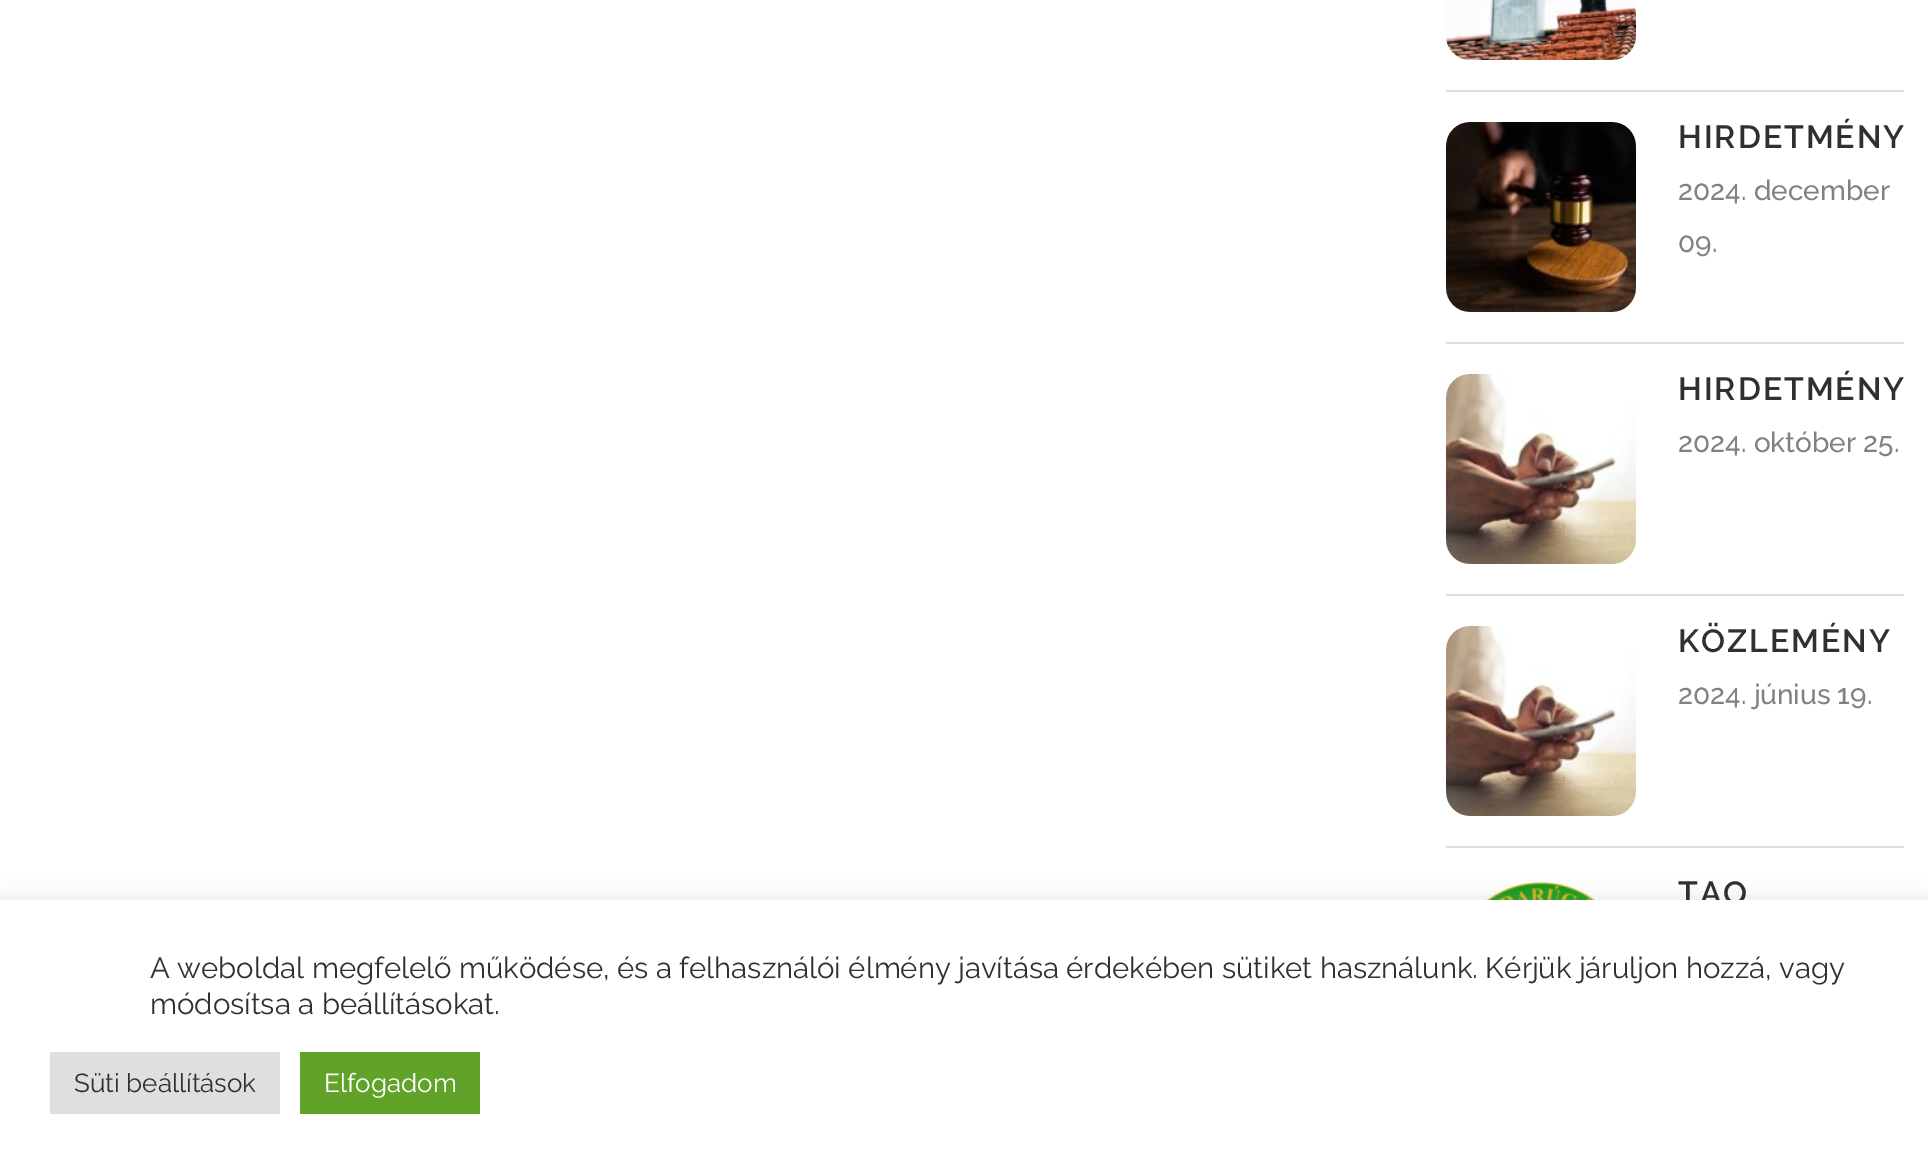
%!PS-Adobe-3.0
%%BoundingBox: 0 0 1928 1174
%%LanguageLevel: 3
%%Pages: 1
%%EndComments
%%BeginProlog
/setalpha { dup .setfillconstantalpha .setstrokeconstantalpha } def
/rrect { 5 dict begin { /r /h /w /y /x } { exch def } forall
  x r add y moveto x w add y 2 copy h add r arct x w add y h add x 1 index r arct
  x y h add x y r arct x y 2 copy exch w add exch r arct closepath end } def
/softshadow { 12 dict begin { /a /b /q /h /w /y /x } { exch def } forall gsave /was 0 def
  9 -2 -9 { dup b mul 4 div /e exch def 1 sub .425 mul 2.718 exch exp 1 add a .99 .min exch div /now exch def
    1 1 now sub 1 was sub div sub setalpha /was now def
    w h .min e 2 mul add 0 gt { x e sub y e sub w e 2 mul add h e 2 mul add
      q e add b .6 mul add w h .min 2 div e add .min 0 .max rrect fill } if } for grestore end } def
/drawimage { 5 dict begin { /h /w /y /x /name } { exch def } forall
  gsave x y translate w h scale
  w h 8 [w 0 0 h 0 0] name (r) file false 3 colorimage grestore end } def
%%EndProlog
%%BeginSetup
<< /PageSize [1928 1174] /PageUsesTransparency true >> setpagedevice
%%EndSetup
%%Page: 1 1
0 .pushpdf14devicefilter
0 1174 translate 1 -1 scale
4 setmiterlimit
1 setgray
0 0 1928 1174 rectfill
(images/1.raw) 1446 0 190 60 drawimage
0.871 setgray
1446 90 458 2 rectfill
(images/2.raw) 1446 122 190 190 drawimage
1446 342 458 2 rectfill
(images/3.raw) 1446 374 190 190 drawimage
1446 594 458 2 rectfill
(images/3.raw) 1446 626 190 190 drawimage
1446 846 458 2 rectfill
(images/4.raw) 1485 881 111 19 drawimage
0.675 0.671 0.671 setrgbcolor
0 898 1928 274 0 10 0.3 softshadow
/Raleway-SemiBold [32 0 0 -32 0 0] selectfont
0.188 setgray
1678 148 moveto 2 0 (HIRDETMÉNY) ashow
/Raleway-Medium [28 0 0 -28 0 0] selectfont
0.506 setgray
1678 200 moveto (2024. december) show
1678 252 moveto (09.) show
/Raleway-SemiBold [32 0 0 -32 0 0] selectfont
0.188 setgray
1678 400 moveto 2 0 (HIRDETMÉNY) ashow
/Raleway-Medium [28 0 0 -28 0 0] selectfont
0.506 setgray
1678 452 moveto (2024. október 25.) show
/Raleway-SemiBold [32 0 0 -32 0 0] selectfont
0.188 setgray
1678 652 moveto 2 0 (KÖZLEMÉNY) ashow
/Raleway-Medium [28 0 0 -28 0 0] selectfont
0.506 setgray
1678 704 moveto (2024. június 19.) show
/Raleway-SemiBold [32 0 0 -32 0 0] selectfont
0.188 setgray
1678 904 moveto 2 0 (TAO) ashow
1 setgray
0 900 1928 274 rectfill
/Raleway-Regular [29.33 0 0 -29.33 0 0] selectfont
0.188 setgray
150 978 moveto (A weboldal megfelelő működése, és a felhasználói élmény javítása érdekében sütiket használunk. Kérjük járuljon hozzá, vagy) show
150 1014 moveto (módosítsa a beállításokat.) show
0.871 0.875 0.878 setrgbcolor
50 1052 230 62 rectfill
/Raleway-Regular [26 0 0 -26 0 0] selectfont
0.188 setgray
74 1092 moveto (Süti beállítások) show
0.38 0.635 0.161 setrgbcolor
300 1052 180 62 rectfill
1 setgray
324 1092 moveto (Elfogadom) show
.poppdf14devicefilter showpage
%%EOF
